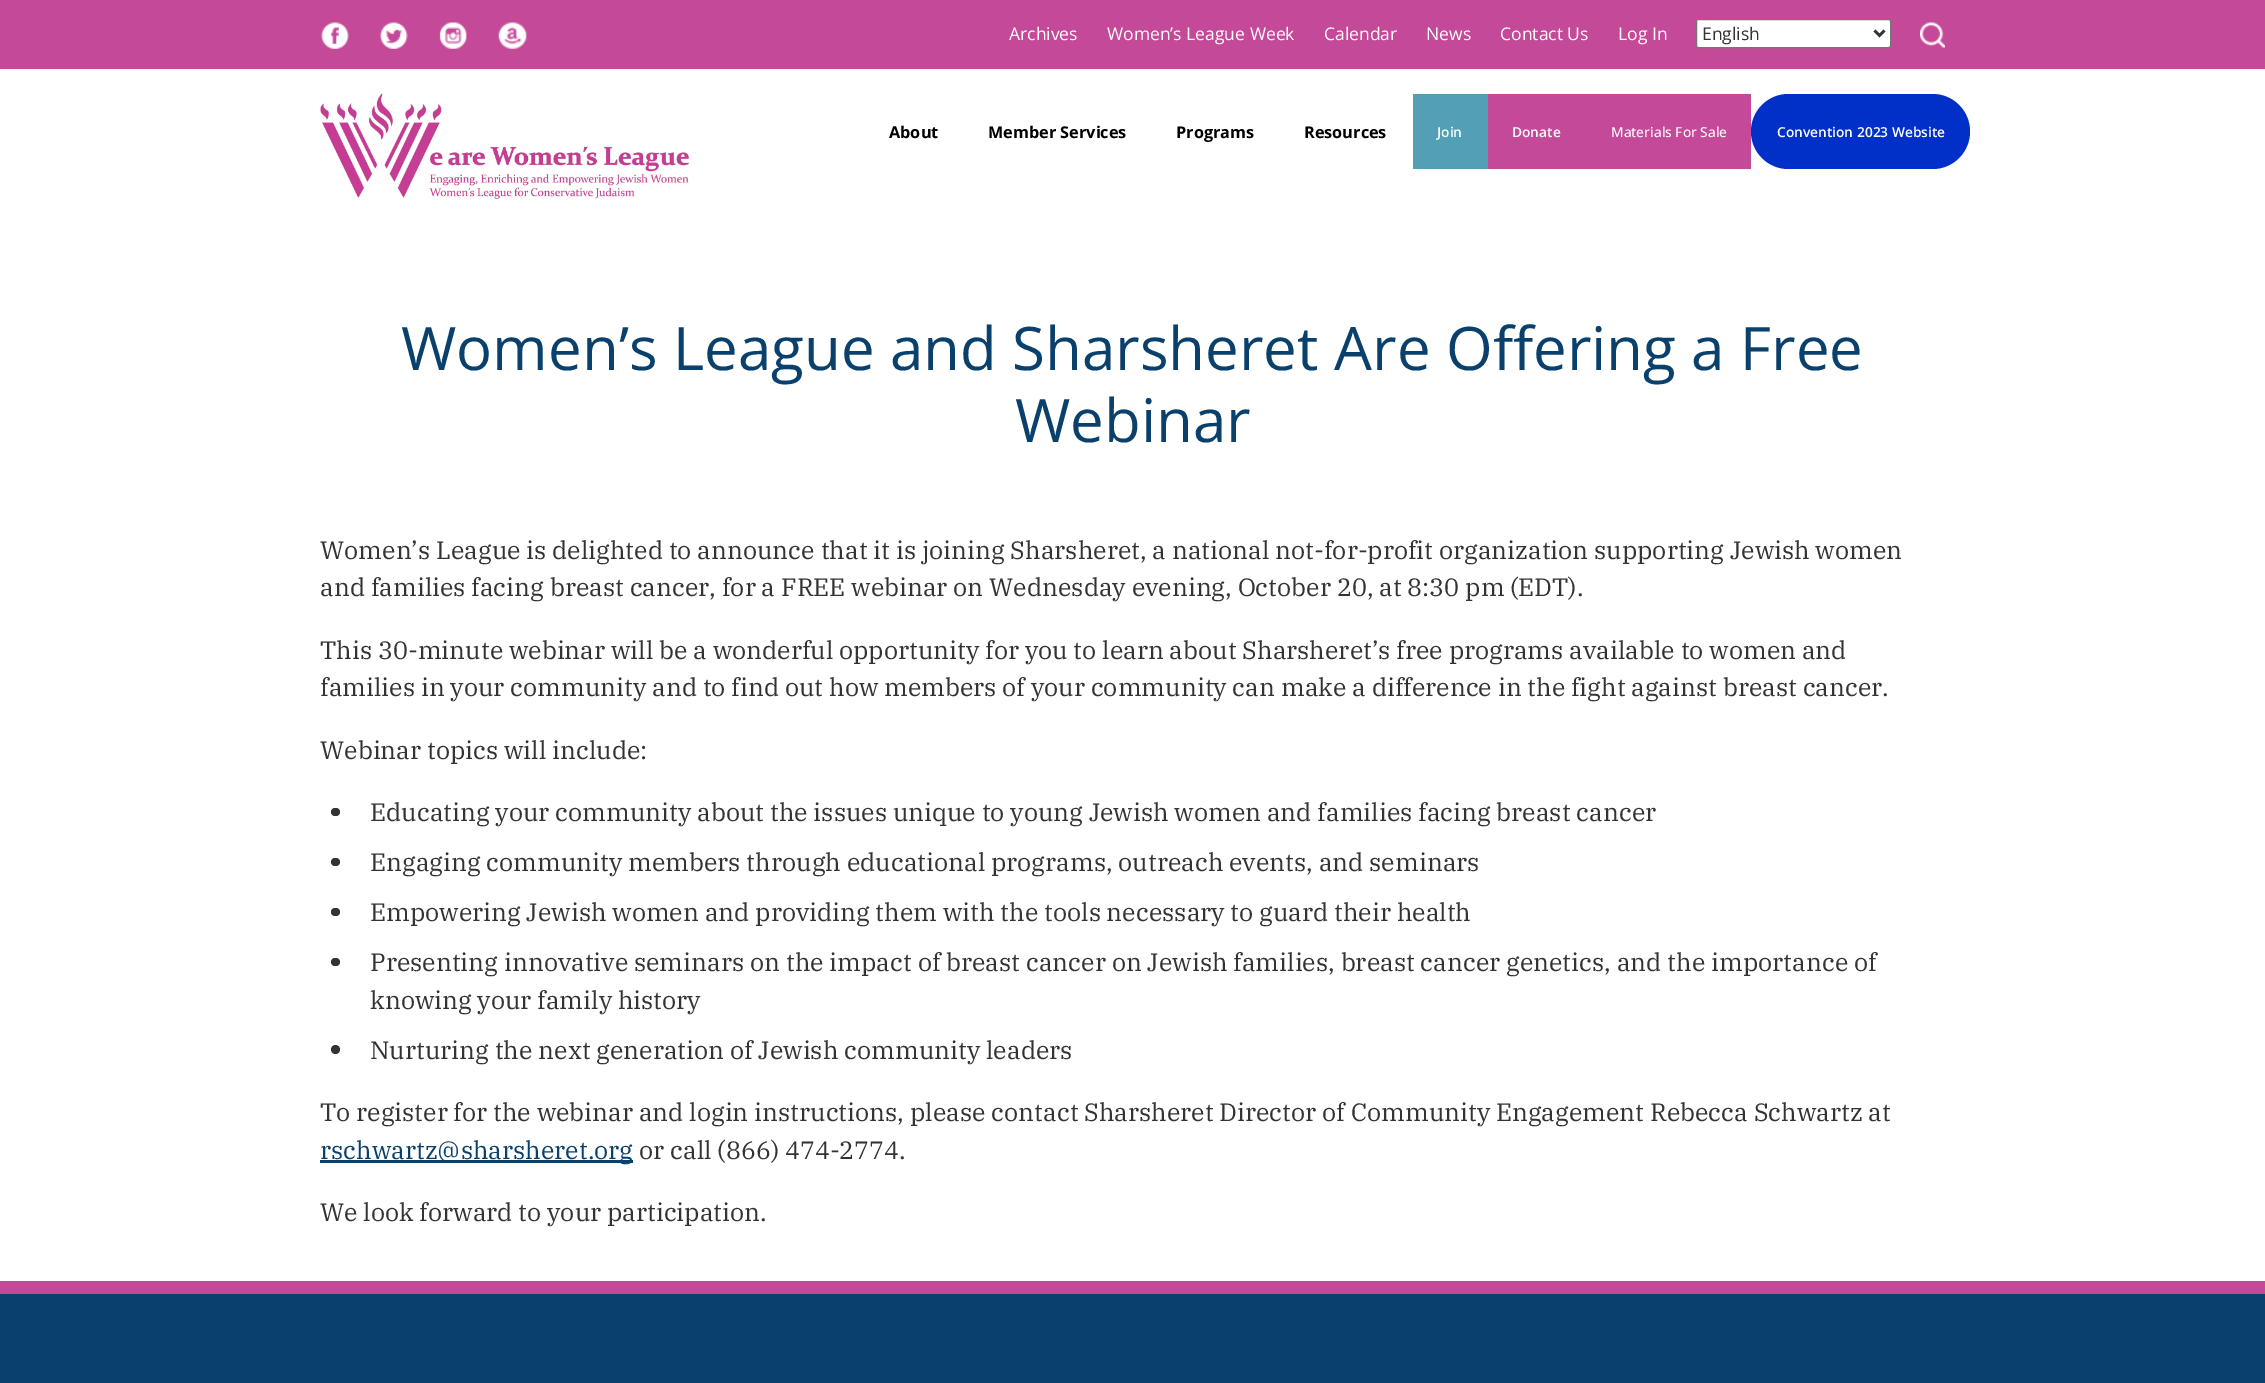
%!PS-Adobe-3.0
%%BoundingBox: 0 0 2265 1383
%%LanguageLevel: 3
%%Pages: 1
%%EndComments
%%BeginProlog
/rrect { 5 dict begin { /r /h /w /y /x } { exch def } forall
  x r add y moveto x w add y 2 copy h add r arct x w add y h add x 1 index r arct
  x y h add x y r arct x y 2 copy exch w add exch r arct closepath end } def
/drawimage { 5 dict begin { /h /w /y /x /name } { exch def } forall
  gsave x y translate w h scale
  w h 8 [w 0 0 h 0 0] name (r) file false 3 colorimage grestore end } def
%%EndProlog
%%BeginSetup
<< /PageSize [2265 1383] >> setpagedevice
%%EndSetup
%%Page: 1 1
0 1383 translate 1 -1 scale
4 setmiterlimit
1 setgray
0 0 2265 1383 rectfill
0.769 0.286 0.6 setrgbcolor
0 0 2265 69 rectfill
(images/1.raw) 321 22 28 27 drawimage
(images/2.raw) 379 22 29 27 drawimage
(images/3.raw) 439 22 28 27 drawimage
(images/4.raw) 498 22 29 27 drawimage
1 setgray
1696.5 19.5 194 28 2 rrect gsave fill grestore
0.463 setgray
stroke
0.2 setgray
2.5 setlinewidth
newpath 1874.5 30.5 moveto 1879.5 35.5 lineto 1884.5 30.5 lineto stroke
(images/5.raw) 1920 22 25 26 drawimage
(images/6.raw) 320 93 369 106 drawimage
0.322 0.624 0.714 setrgbcolor
1413 94 75 75 rectfill
0.769 0.286 0.6 setrgbcolor
1488 94 263 75 rectfill
0 0.188 0.784 setrgbcolor
1751 94 219 75 37.5 rrect fill
0.2 setgray
331 808 9 8 4 rrect fill
331 858 9 8 4 rrect fill
331 908 9 8 4 rrect fill
331 958 9 8 4 rrect fill
newpath 335.5 1049.5 4.5 0 360 arc closepath fill
0.039 0.251 0.424 setrgbcolor
320 1160 313 3 rectfill
0 1294 2265 89 rectfill
0.769 0.286 0.6 setrgbcolor
0 1281 2265 13 rectfill
/OpenSans-Regular [17.5 0 0 -17.5 0 0] selectfont
1 setgray
1009 40 moveto (Archives) show
1107 40 moveto (Women’s League Week) show
1324 40 moveto (Calendar) show
1426 40 moveto (News) show
1500 40 moveto (Contact Us) show
1618 40 moveto (Log In) show
0.2 setgray
1702 40 moveto (English) show
/OpenSans-Bold [16.25 0 0 -16.25 0 0] selectfont
0 setgray
889 138 moveto (About) show
988 138 moveto (Member Services) show
1176 138 moveto (Programs) show
1304 138 moveto (Resources) show
/OpenSans-SemiBold [13.75 0 0 -13.75 0 0] selectfont
1 setgray
1437 137 moveto (Join) show
1512 137 moveto (Donate) show
/OpenSans-Medium [13.75 0 0 -13.75 0 0] selectfont
1611 137 moveto (Materials For Sale) show
/OpenSans-SemiBold [13.75 0 0 -13.75 0 0] selectfont
1777 137 moveto (Convention 2023 Website) show
/OpenSans-Regular [60 0 0 -60 0 0] selectfont
0.039 0.251 0.424 setrgbcolor
401 370 moveto (Women’s League and Sharsheret Are Offering a Free) show
1015 442 moveto (Webinar) show
/IBMPlexSerif-Regular [25 0 0 -25 0 0] selectfont
0.2 setgray
320 559 moveto (Women’s League is delighted to announce that it is joining Sharsheret, a national not-for-profit organization supporting Jewish women) show
320 596 moveto (and families facing breast cancer, for a FREE webinar on Wednesday evening, October 20, at 8:30 pm \(EDT\).) show
320 659 moveto (This 30-minute webinar will be a wonderful opportunity for you to learn about Sharsheret’s free programs available to women and) show
320 696 moveto (families in your community and to find out how members of your community can make a difference in the fight against breast cancer.) show
320 759 moveto (Webinar topics will include:) show
370 821 moveto (Educating your community about the issues unique to young Jewish women and families facing breast cancer) show
370 871 moveto (Engaging community members through educational programs, outreach events, and seminars) show
370 921 moveto (Empowering Jewish women and providing them with the tools necessary to guard their health) show
370 971 moveto (Presenting innovative seminars on the impact of breast cancer on Jewish families, breast cancer genetics, and the importance of) show
370 1009 moveto (knowing your family history) show
370 1059 moveto (Nurturing the next generation of Jewish community leaders) show
320 1121 moveto (To register for the webinar and login instructions, please contact Sharsheret Director of Community Engagement Rebecca Schwartz at) show
0.039 0.251 0.424 setrgbcolor
320 1159 moveto (rschwartz@sharsheret.org) show
0.2 setgray
639 1159 moveto (or call \(866\) 474-2774.) show
320 1221 moveto (We look forward to your participation.) show
showpage
%%EOF
